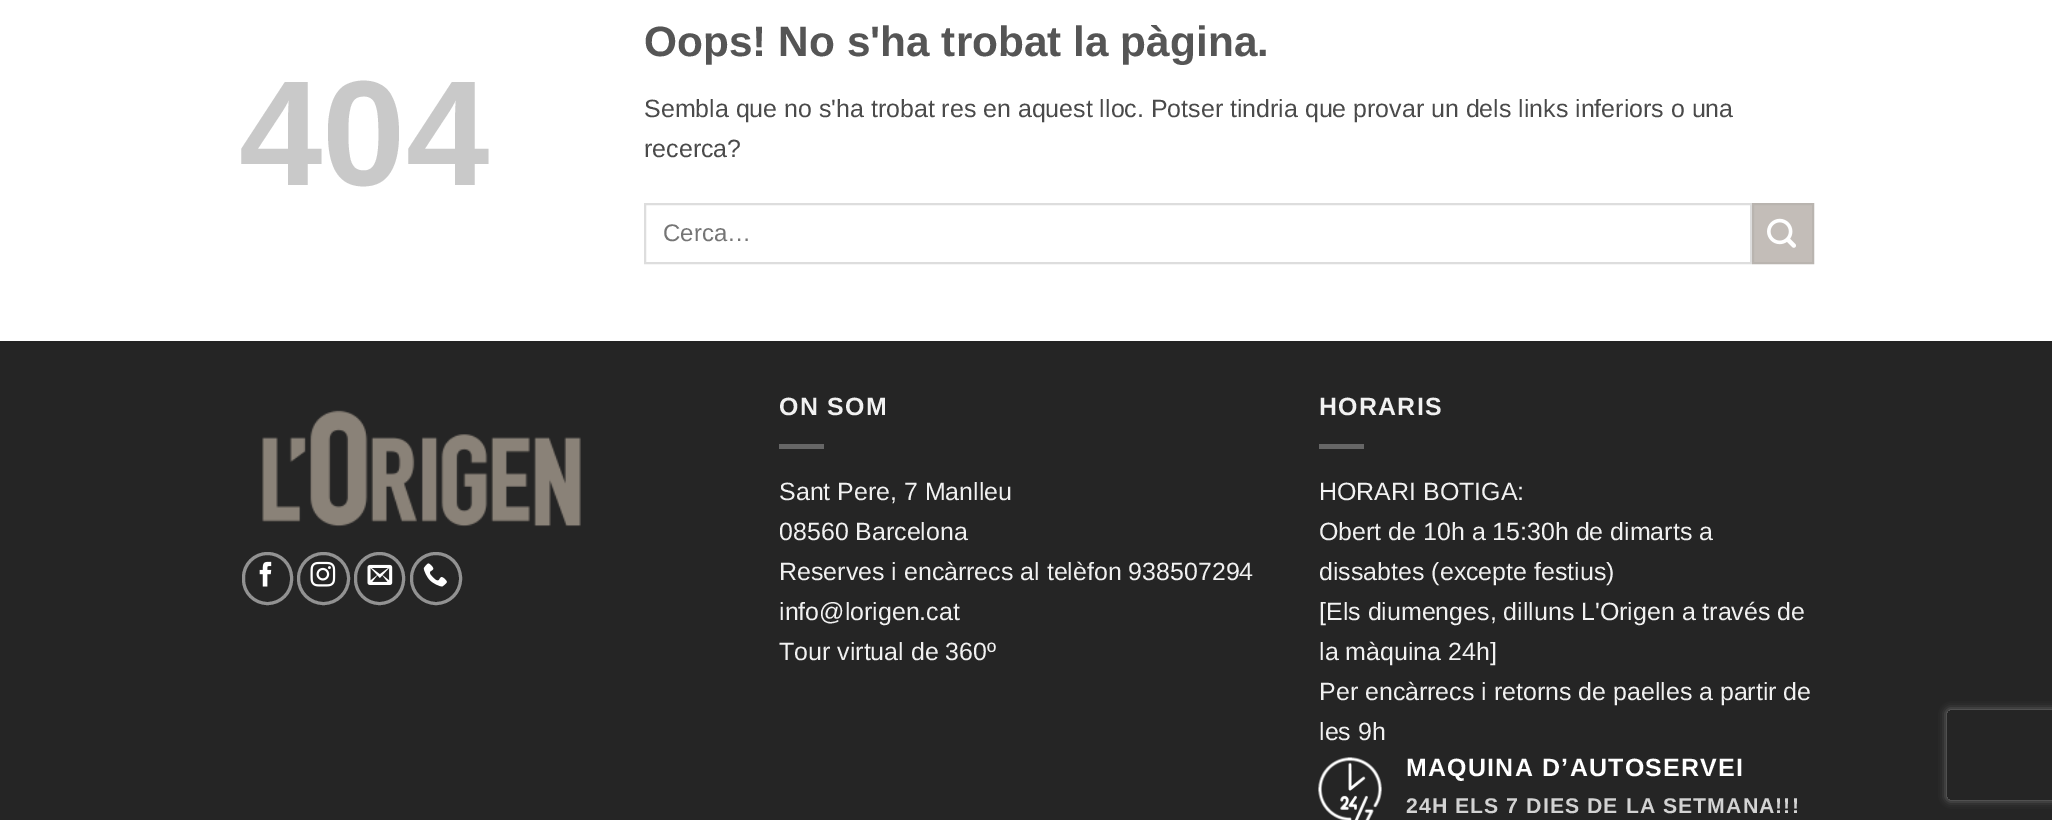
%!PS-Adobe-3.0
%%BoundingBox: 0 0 2052 820
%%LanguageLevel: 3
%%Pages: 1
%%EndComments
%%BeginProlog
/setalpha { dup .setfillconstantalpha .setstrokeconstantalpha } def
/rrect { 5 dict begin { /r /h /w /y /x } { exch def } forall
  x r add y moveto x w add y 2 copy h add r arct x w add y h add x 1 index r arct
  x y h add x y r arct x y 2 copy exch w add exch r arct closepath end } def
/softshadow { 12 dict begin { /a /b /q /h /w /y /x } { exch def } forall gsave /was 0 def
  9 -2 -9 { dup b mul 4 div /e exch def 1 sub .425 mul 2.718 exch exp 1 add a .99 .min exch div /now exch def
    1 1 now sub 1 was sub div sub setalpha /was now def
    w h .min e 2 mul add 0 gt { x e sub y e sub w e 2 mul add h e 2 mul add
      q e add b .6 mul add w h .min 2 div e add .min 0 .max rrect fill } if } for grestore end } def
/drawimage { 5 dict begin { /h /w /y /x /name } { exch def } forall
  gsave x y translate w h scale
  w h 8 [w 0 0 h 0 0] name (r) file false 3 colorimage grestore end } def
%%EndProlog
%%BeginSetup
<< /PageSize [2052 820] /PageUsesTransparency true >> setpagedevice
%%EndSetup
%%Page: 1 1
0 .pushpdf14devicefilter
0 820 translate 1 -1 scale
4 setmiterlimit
1 setgray
0 0 2052 820 rectfill
0.867 setgray
2 setlinewidth
645 204 1106 59 rectstroke
0.765 0.741 0.722 setrgbcolor
newpath 1753 204 moveto 1813 204 lineto 1813 263 lineto 1753 263 lineto closepath gsave fill grestore
0.725 0.706 0.686 setrgbcolor
stroke
(images/1.raw) 1767 218 29 30 drawimage
0.145 setgray
0 343 2052 477 rectfill
0.137 setgray
0 341 2052 2 rectfill
(images/2.raw) 262 410 319 117 drawimage
0.573 setgray
3 setlinewidth
243.5 553.5 48 50 24 rrect stroke
(images/3.raw) 259 561 13 26 drawimage
newpath 323.5 578.5 25 0 360 arc closepath stroke
(images/4.raw) 310 561 26 26 drawimage
355.5 553.5 48 50 24 rrect stroke
(images/5.raw) 367 564 26 21 drawimage
411.5 553.5 49 50 24.5 rrect stroke
(images/6.raw) 423 563 24 24 drawimage
0.4 setgray
779 444 45 5 rectfill
1319 444 45 5 rectfill
(images/7.raw) 1318 757 64 63 drawimage
gsave
newpath 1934 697 moveto 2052 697 lineto 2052 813 lineto 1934 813 lineto closepath 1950 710 moveto 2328 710 lineto 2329.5 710 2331 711.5 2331 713 curveto 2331 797 lineto 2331 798.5 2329.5 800 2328 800 curveto 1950 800 lineto 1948.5 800 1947 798.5 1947 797 curveto 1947 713 lineto 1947 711.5 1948.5 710 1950 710 curveto closepath eoclip newpath
0.502 setgray
1947 710 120 90 3 4 1 softshadow
grestore
/LiberationSans-Bold [150 0 0 -150 0 0] selectfont
0.788 setgray
239 185 moveto (404) show
/LiberationSans-Bold [42.4 0 0 -42.4 0 0] selectfont
0.333 setgray
644 56 moveto (Oops! No s'ha trobat la pàgina.) show
/LiberationSans-Regular [24.95 0 0 -24.95 0 0] selectfont
0.29 setgray
644 117 moveto (Sembla que no s'ha trobat res en aquest lloc. Potser tindria que provar un dels links inferiors o una) show
644 157 moveto (recerca?) show
/LiberationSans-Regular [24 0 0 -24 0 0] selectfont
0.459 setgray
663 241 moveto (Cerca…) show
/LiberationSans-Bold [24.95 0 0 -24.95 0 0] selectfont
0.945 setgray
779 415 moveto 1.25 0 (ON SOM) ashow
/LiberationSans-Regular [24.95 0 0 -24.95 0 0] selectfont
779 500 moveto (Sant Pere, 7 Manlleu) show
779 540 moveto (08560 Barcelona) show
779 580 moveto (Reserves i encàrrecs al telèfon 938507294) show
779 620 moveto (info@lorigen.cat) show
779 660 moveto (Tour virtual de 360º) show
/LiberationSans-Bold [24.95 0 0 -24.95 0 0] selectfont
1319 415 moveto 1.25 0 (HORARIS) ashow
/LiberationSans-Regular [24.95 0 0 -24.95 0 0] selectfont
1319 500 moveto (HORARI BOTIGA:) show
1319 540 moveto (Obert de 10h a 15:30h de dimarts a) show
1319 580 moveto (dissabtes \(excepte festius\)) show
1319 620 moveto ([Els diumenges, dilluns L'Origen a través de) show
1319 660 moveto (la màquina 24h]) show
1319 700 moveto (Per encàrrecs i retorns de paelles a partir de) show
1319 740 moveto (les 9h) show
/LiberationSans-Bold [24.95 0 0 -24.95 0 0] selectfont
1 setgray
1406 776 moveto 1.25 0 (MAQUINA D’AUTOSERVEI) ashow
/LiberationSans-Bold [21.25 0 0 -21.25 0 0] selectfont
0.827 setgray
1406 813 moveto 1.05 0 (24H ELS 7 DIES DE LA SETMANA!!!) ashow
.poppdf14devicefilter showpage
%%EOF
